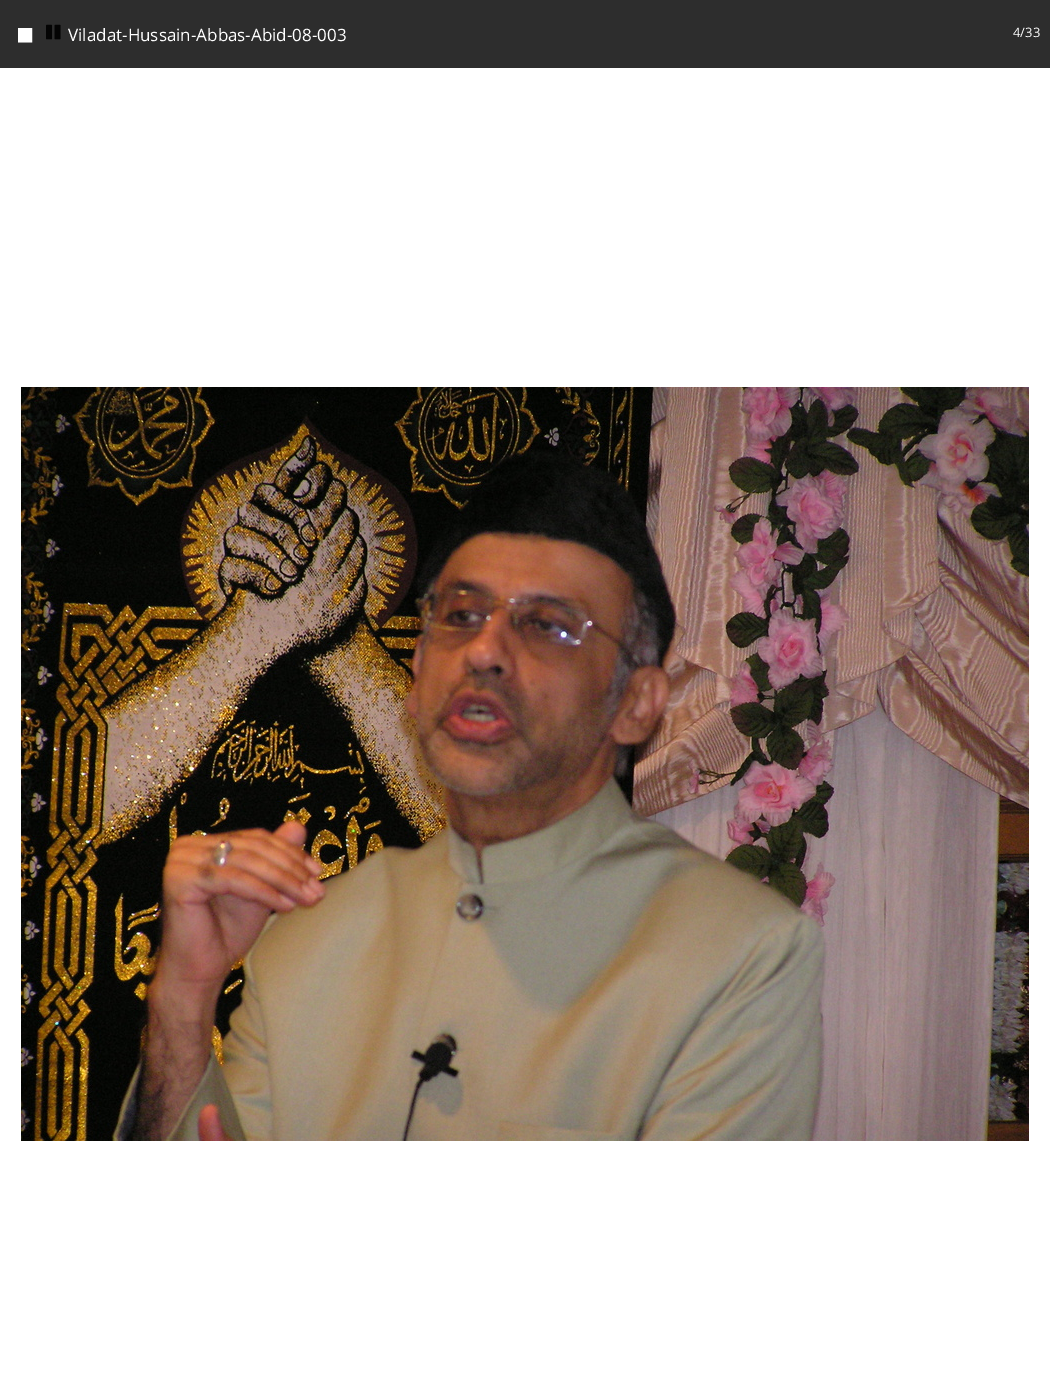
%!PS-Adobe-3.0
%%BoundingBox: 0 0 1050 1391
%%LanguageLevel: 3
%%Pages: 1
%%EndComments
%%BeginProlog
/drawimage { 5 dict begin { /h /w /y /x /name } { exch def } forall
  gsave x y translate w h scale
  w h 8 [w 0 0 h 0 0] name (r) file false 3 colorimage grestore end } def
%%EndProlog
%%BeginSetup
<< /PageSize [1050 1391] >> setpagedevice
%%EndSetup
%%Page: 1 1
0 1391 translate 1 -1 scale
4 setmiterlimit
1 setgray
0 0 1050 1391 rectfill
0.176 setgray
0 0 1050 68 rectfill
(images/1.raw) 46 24 15 16 drawimage
(images/2.raw) 21 387 1008 754 drawimage
/DejaVuSans-Regular [22 0 0 -22 0 0] selectfont
1 setgray
16 41 moveto (◼) show
/OpenSans-Regular [17 0 0 -17 0 0] selectfont
68 41 moveto (Viladat-Hussain-Abbas-Abid-08-003) show
/OpenSans-Regular [13 0 0 -13 0 0] selectfont
1013 37 moveto (4/33) show
showpage
%%EOF
